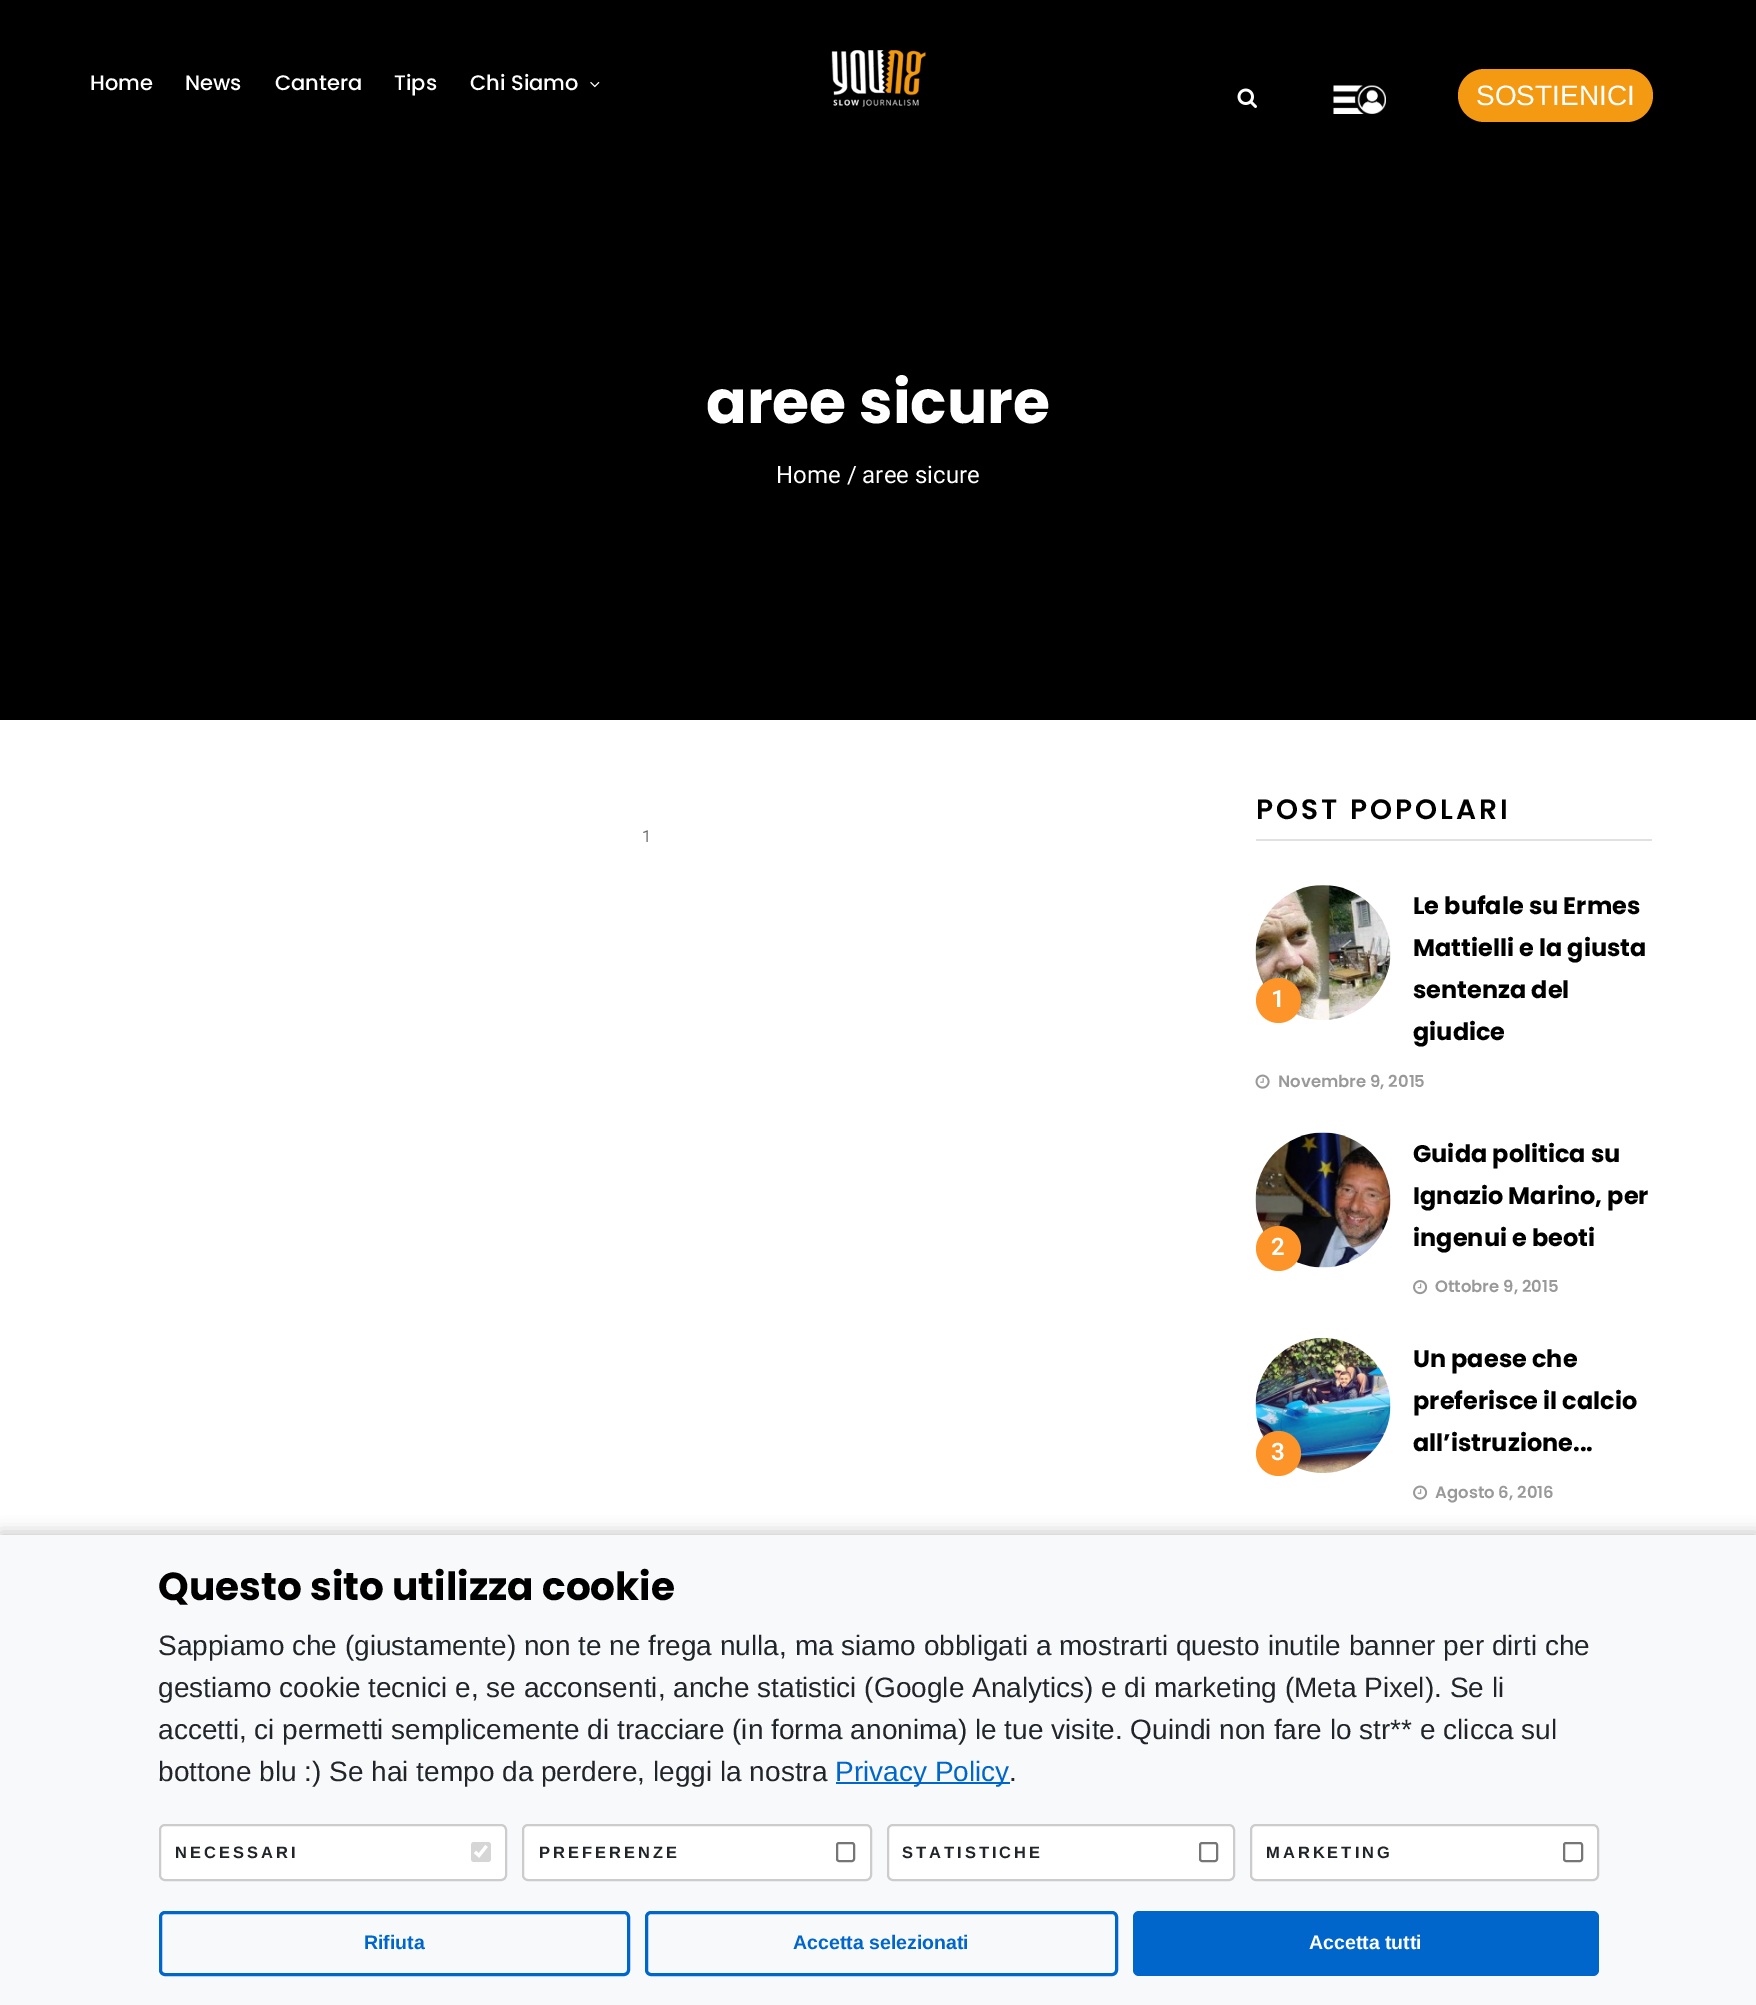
%!PS-Adobe-3.0
%%BoundingBox: 0 0 1756 2005
%%LanguageLevel: 3
%%Pages: 1
%%EndComments
%%BeginProlog
/setalpha { dup .setfillconstantalpha .setstrokeconstantalpha } def
/rrect { 5 dict begin { /r /h /w /y /x } { exch def } forall
  x r add y moveto x w add y 2 copy h add r arct x w add y h add x 1 index r arct
  x y h add x y r arct x y 2 copy exch w add exch r arct closepath end } def
/softshadow { 12 dict begin { /a /b /q /h /w /y /x } { exch def } forall gsave /was 0 def
  9 -2 -9 { dup b mul 4 div /e exch def 1 sub .425 mul 2.718 exch exp 1 add a .99 .min exch div /now exch def
    1 1 now sub 1 was sub div sub setalpha /was now def
    w h .min e 2 mul add 0 gt { x e sub y e sub w e 2 mul add h e 2 mul add
      q e add b .6 mul add w h .min 2 div e add .min 0 .max rrect fill } if } for grestore end } def
/drawimage { 5 dict begin { /h /w /y /x /name } { exch def } forall
  gsave x y translate w h scale
  w h 8 [w 0 0 h 0 0] name (r) file false 3 colorimage grestore end } def
%%EndProlog
%%BeginSetup
<< /PageSize [1756 2005] /PageUsesTransparency true >> setpagedevice
%%EndSetup
%%Page: 1 1
0 .pushpdf14devicefilter
0 2005 translate 1 -1 scale
4 setmiterlimit
1 setgray
0 0 1756 2005 rectfill
0 setgray
0 0 1756 720 rectfill
(images/1.raw) 831 50 95 57 drawimage
(images/2.raw) 590 81 10 7 drawimage
(images/3.raw) 1237 88 20 20 drawimage
(images/4.raw) 1333 85 53 29 drawimage
0.957 0.6 0.071 setrgbcolor
1458 69 195 53 26.5 rrect fill
0.882 setgray
1256 839 396 2 rectfill
(images/5.raw) 1255 885 136 135 drawimage
0.992 0.58 0.161 setrgbcolor
newpath 1278.5 1000.5 22.5 0 360 arc closepath fill
(images/6.raw) 1255 1074 15 15 drawimage
(images/7.raw) 1255 1132 136 136 drawimage
newpath 1278.5 1248.5 22.5 0 360 arc closepath fill
(images/8.raw) 1413 1280 15 15 drawimage
(images/9.raw) 1255 1338 136 135 drawimage
newpath 1278.5 1453.5 22.5 0 360 arc closepath fill
(images/10.raw) 1413 1485 15 15 drawimage
0 setgray
0 1532 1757 471 0 7.5 0.2 softshadow
0.973 0.976 0.98 setrgbcolor
0 1535 1756 470 rectfill
0 0.4 0.8 setrgbcolor
836 1782 174 2 rectfill
1 setgray
160 1825 346 55 5 rrect gsave fill grestore
0.8 setgray
2 setlinewidth
stroke
0.839 setgray
471 1842 20 20 3 rrect fill
1 setgray
3.1 setlinewidth
newpath 475 1852 moveto 479 1855.5 lineto 486.5 1846 lineto stroke
523 1825 348 55 5 rrect gsave fill grestore
0.8 setgray
2 setlinewidth
stroke
0.463 setgray
837 1843 17 18 2 rrect stroke
1 setgray
888 1825 346 55 5 rrect gsave fill grestore
0.8 setgray
stroke
0.463 setgray
1200 1843 17 18 2 rrect stroke
1 setgray
1251 1825 347 55 5 rrect gsave fill grestore
0.8 setgray
stroke
0.463 setgray
1564 1843 18 18 2 rrect stroke
0 0.4 0.8 setrgbcolor
3 setlinewidth
160.5 1912.5 468 62 4.5 rrect stroke
646.5 1912.5 470 62 4.5 rrect stroke
1133 1911 466 65 6 rrect fill
/Poppins-Medium [21 0 0 -21 0 0] selectfont
1 setgray
90 90 moveto (Home) show
185 90 moveto (News) show
275 90 moveto (Cantera) show
394 90 moveto (Tips) show
470 90 moveto (Chi Siamo) show
/LiberationSans-Regular [28 0 0 -28 0 0] selectfont
1476 105 moveto (SOSTIENICI) show
/Poppins-Bold [60 0 0 -60 0 0] selectfont
706 423 moveto (aree sicure) show
/Roboto-Regular [24 0 0 -24 0 0] selectfont
776 483 moveto (Home / aree sicure) show
/Roboto-Regular [16.5 0 0 -16.5 0 0] selectfont
0.4 setgray
642 842 moveto (1) show
/Poppins-SemiBold [28 0 0 -28 0 0] selectfont
0 setgray
1256 819 moveto 3 0 (POST POPOLARI) ashow
/Poppins-Bold [24 0 0 -24 0 0] selectfont
1413 914 moveto (Le bufale su Ermes) show
1413 956 moveto (Mattielli e la giusta) show
/Roboto-SemiBold [24 0 0 -24 0 0] selectfont
1 setgray
1271 1007 moveto (1) show
/Poppins-Bold [24 0 0 -24 0 0] selectfont
0 setgray
1413 998 moveto (sentenza del) show
1413 1040 moveto (giudice) show
/Poppins-SemiBold [16.5 0 0 -16.5 0 0] selectfont
0.6 setgray
1278 1087 moveto (Novembre 9, 2015) show
/Poppins-Bold [24 0 0 -24 0 0] selectfont
0 setgray
1413 1162 moveto (Guida politica su) show
1413 1204 moveto (Ignazio Marino, per) show
/Roboto-SemiBold [24 0 0 -24 0 0] selectfont
1 setgray
1271 1255 moveto (2) show
/Poppins-Bold [24 0 0 -24 0 0] selectfont
0 setgray
1413 1246 moveto (ingenui e beoti) show
/Poppins-SemiBold [16.5 0 0 -16.5 0 0] selectfont
0.6 setgray
1435 1292 moveto (Ottobre 9, 2015) show
/Poppins-Bold [24 0 0 -24 0 0] selectfont
0 setgray
1413 1367 moveto (Un paese che) show
1413 1409 moveto (preferisce il calcio) show
/Roboto-SemiBold [24 0 0 -24 0 0] selectfont
1 setgray
1271 1460 moveto (3) show
/Poppins-Bold [24 0 0 -24 0 0] selectfont
0 setgray
1413 1451 moveto (all’istruzione...) show
/Poppins-SemiBold [16.5 0 0 -16.5 0 0] selectfont
0.6 setgray
1435 1498 moveto (Agosto 6, 2016) show
/Poppins-Bold [39 0 0 -39 0 0] selectfont
0 setgray
158 1600 moveto (Questo sito utilizza cookie) show
/LiberationSans-Regular [28 0 0 -28 0 0] selectfont
0.129 0.145 0.161 setrgbcolor
158 1655 moveto (Sappiamo che \(giustamente\) non te ne frega nulla, ma siamo obbligati a mostrarti questo inutile banner per dirti che) show
158 1697 moveto (gestiamo cookie tecnici e, se acconsenti, anche statistici \(Google Analytics\) e di marketing \(Meta Pixel\). Se li) show
158 1739 moveto (accetti, ci permetti semplicemente di tracciare \(in forma anonima\) le tue visite. Quindi non fare lo str** e clicca sul) show
158 1781 moveto (bottone blu :\) Se hai tempo da perdere, leggi la nostra) show
0 0.4 0.8 setrgbcolor
835 1781 moveto (Privacy Policy) show
0.129 0.145 0.161 setrgbcolor
1009 1781 moveto (.) show
/LiberationSans-Bold [16.5 0 0 -16.5 0 0] selectfont
175 1858 moveto 3 0 (NECESSARI) ashow
539 1858 moveto 3 0 (PREFERENZE) ashow
902 1858 moveto 3 0 (STATISTICHE) ashow
1266 1858 moveto 3 0 (MARKETING) ashow
/LiberationSans-Bold [19.5 0 0 -19.5 0 0] selectfont
0 0.4 0.8 setrgbcolor
364 1949 moveto (Rifiuta) show
793 1949 moveto (Accetta selezionati) show
1 setgray
1309 1949 moveto (Accetta tutti) show
.poppdf14devicefilter showpage
%%EOF
